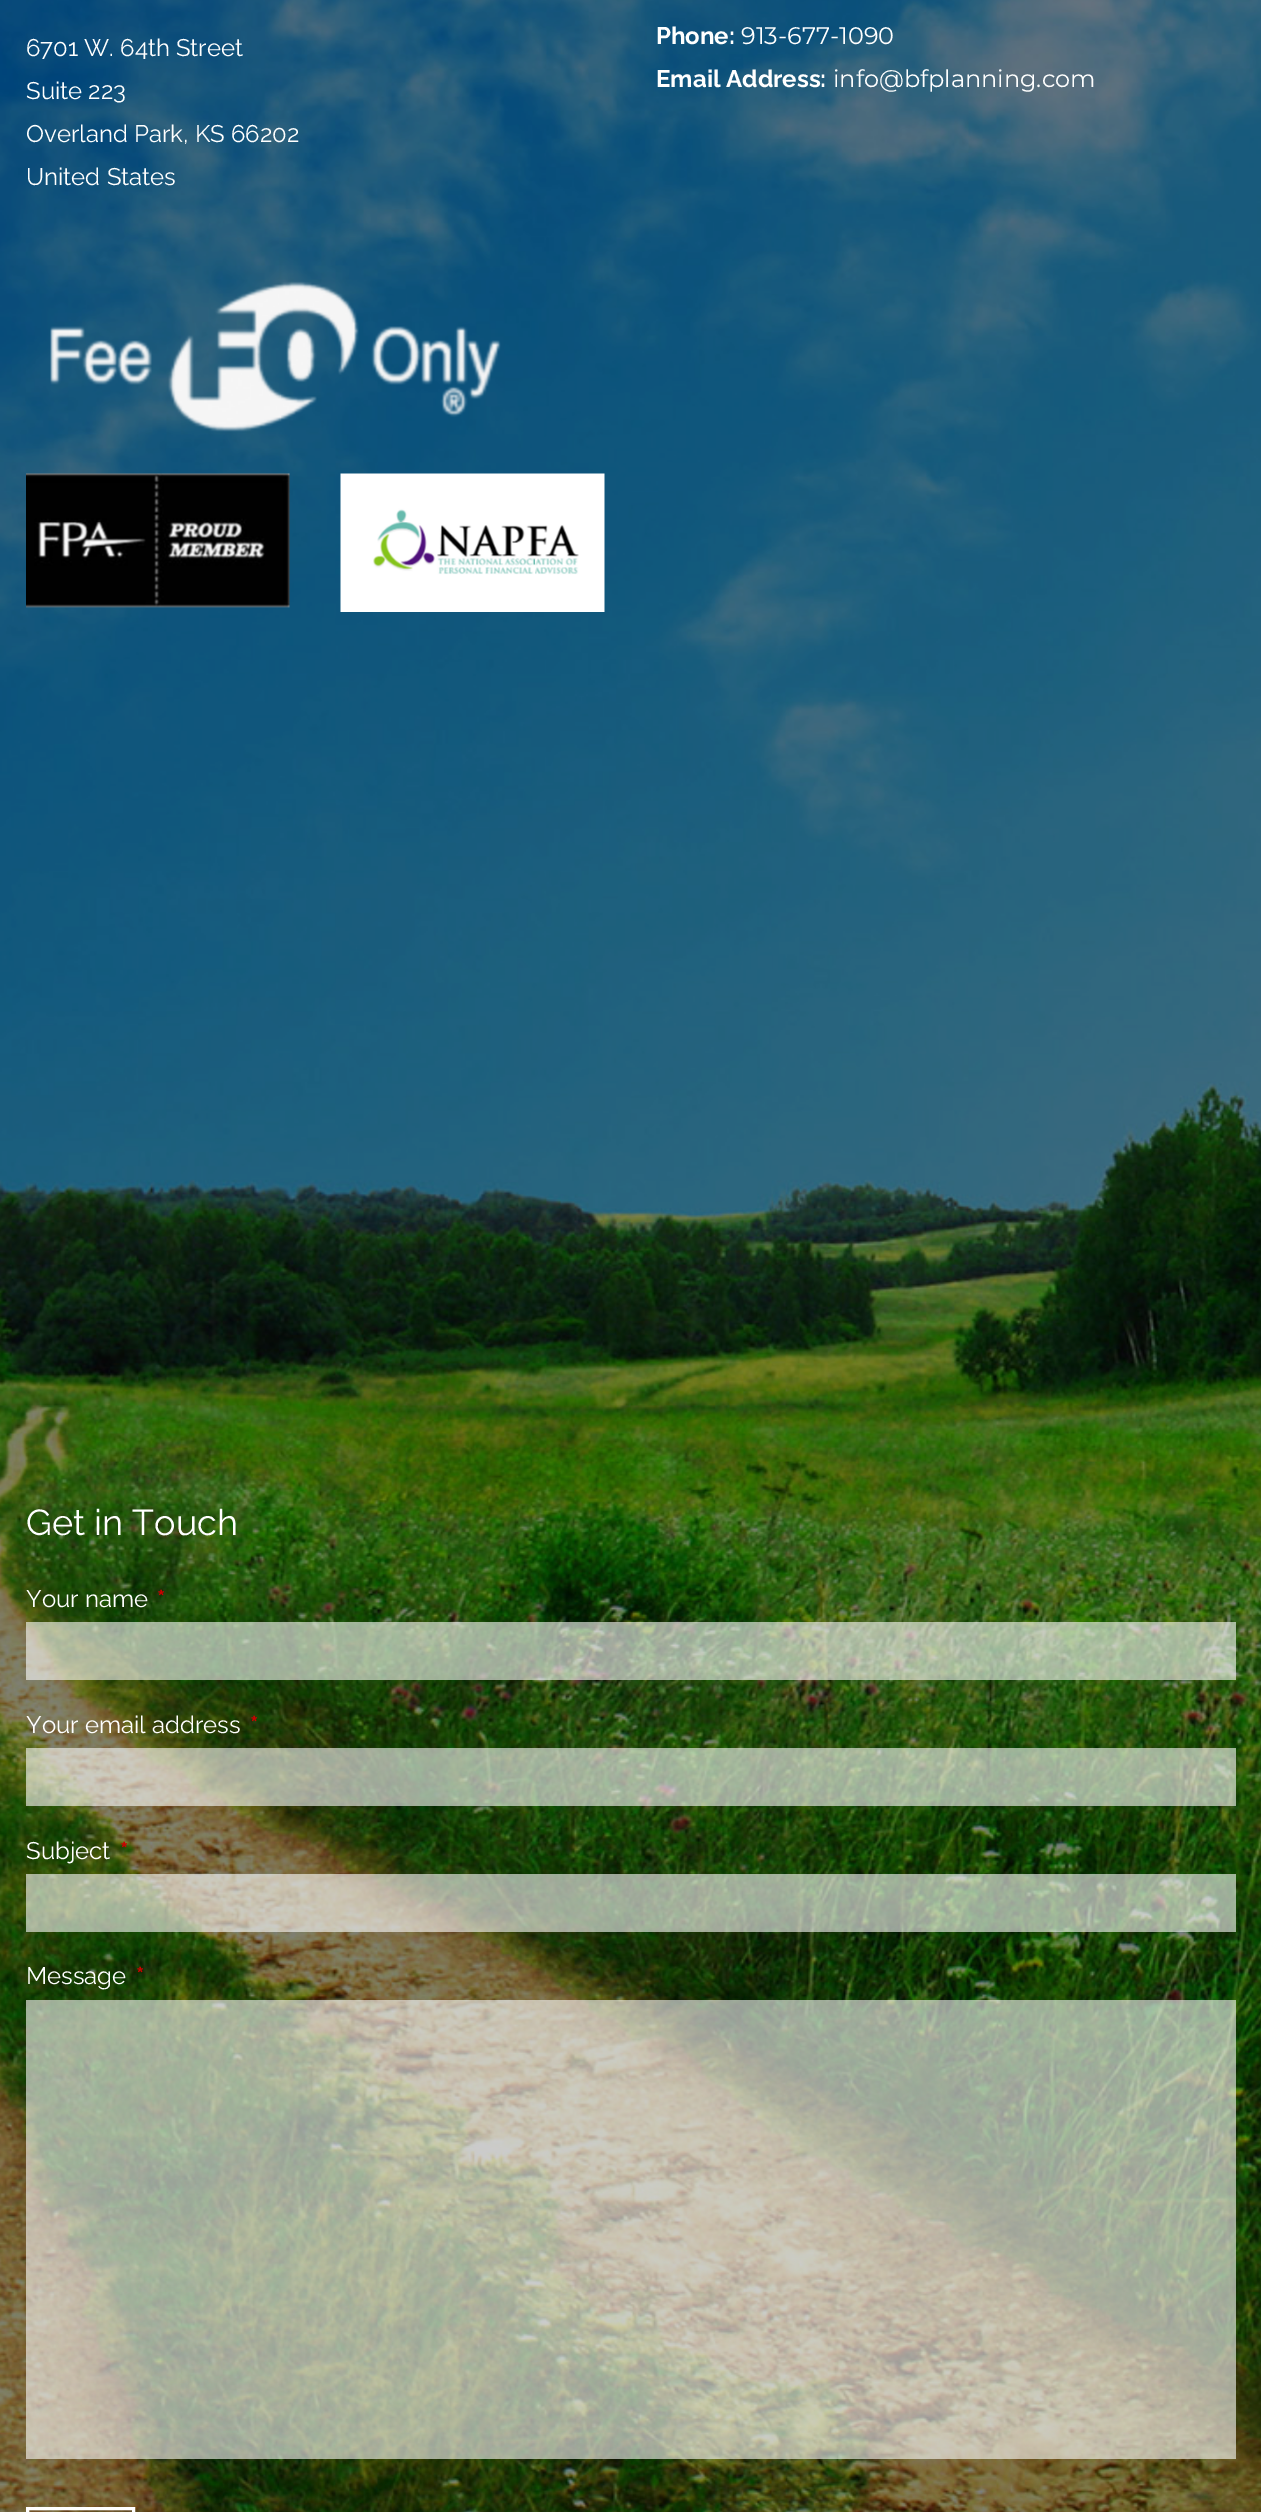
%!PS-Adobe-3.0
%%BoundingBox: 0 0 1261 2512
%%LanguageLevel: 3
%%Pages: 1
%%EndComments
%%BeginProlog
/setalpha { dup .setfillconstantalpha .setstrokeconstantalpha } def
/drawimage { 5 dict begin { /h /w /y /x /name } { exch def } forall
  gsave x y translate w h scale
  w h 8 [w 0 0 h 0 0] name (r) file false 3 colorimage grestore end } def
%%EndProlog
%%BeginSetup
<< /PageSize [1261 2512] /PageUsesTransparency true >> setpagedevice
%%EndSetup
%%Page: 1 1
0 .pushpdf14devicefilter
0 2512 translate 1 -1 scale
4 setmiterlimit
1 setgray
0 0 1261 2512 rectfill
(images/1.raw) 0 0 1261 2512 drawimage
(images/2.raw) 50 281 451 151 drawimage
(images/3.raw) 26 473 264 135 drawimage
(images/4.raw) 340 473 265 139 drawimage
0.6 setalpha
0.996 setgray
26 1622 1210 58 rectfill
26 1748 1210 58 rectfill
26 1874 1210 58 rectfill
26 2000 1210 459 rectfill
1 setalpha
1 setgray
3 setlinewidth
27.5 2508.5 106 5 rectstroke
/Raleway-Thin [24 0 0 -24 0 0] selectfont
26 56 moveto (6701 W. 64th Street) show
26 99 moveto (Suite 223) show
26 142 moveto (Overland Park, KS 66202) show
26 185 moveto (United States) show
/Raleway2-Thin [24 0 0 -24 0 0] selectfont
656 44 moveto (Phone:) show
/Montserrat-Thin [24 0 0 -24 0 0] selectfont
741 44 moveto (913-677-1090) show
/Raleway2-Thin [24 0 0 -24 0 0] selectfont
656 87 moveto (Email Address:) show
/Montserrat-Thin [24 0 0 -24 0 0] selectfont
833 87 moveto (info@bfplanning.com) show
/Raleway-Thin [36 0 0 -36 0 0] selectfont
26 1535 moveto (Get in Touch) show
/Raleway-Thin [24 0 0 -24 0 0] selectfont
26 1607 moveto (Your name) show
/Raleway2-Thin [24 0 0 -24 0 0] selectfont
0.8 0 0 setrgbcolor
157 1607 moveto (*) show
/Raleway-Thin [24 0 0 -24 0 0] selectfont
1 setgray
26 1733 moveto (Your email address) show
/Raleway2-Thin [24 0 0 -24 0 0] selectfont
0.8 0 0 setrgbcolor
250 1733 moveto (*) show
/Raleway-Thin [24 0 0 -24 0 0] selectfont
1 setgray
26 1859 moveto (Subject) show
/Raleway2-Thin [24 0 0 -24 0 0] selectfont
0.8 0 0 setrgbcolor
120 1859 moveto (*) show
/Raleway-Thin [24 0 0 -24 0 0] selectfont
1 setgray
26 1984 moveto (Message) show
/Raleway2-Thin [24 0 0 -24 0 0] selectfont
0.8 0 0 setrgbcolor
136 1984 moveto (*) show
.poppdf14devicefilter showpage
%%EOF
